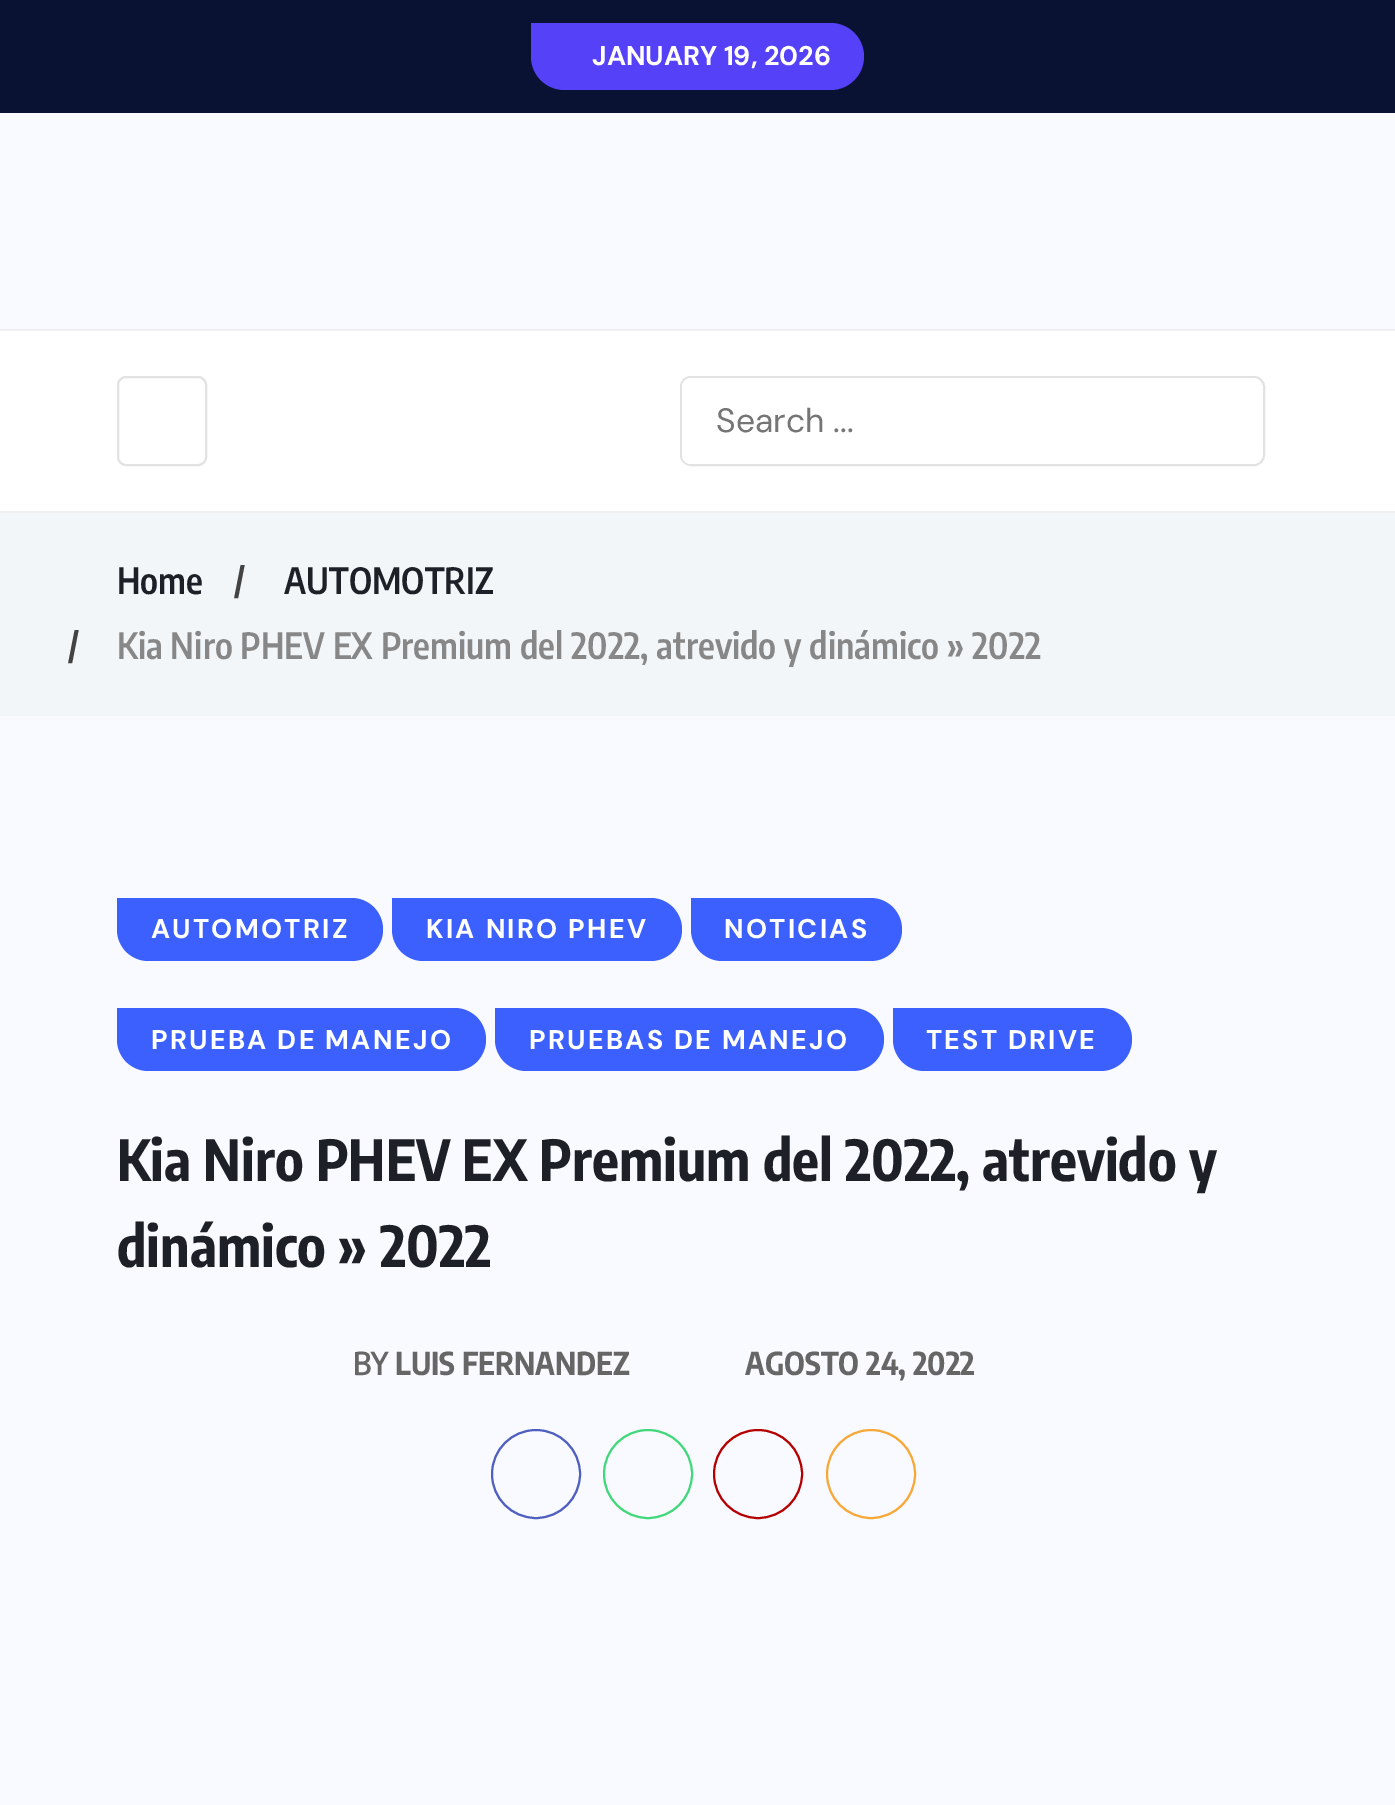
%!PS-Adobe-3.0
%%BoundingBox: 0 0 1395 1805
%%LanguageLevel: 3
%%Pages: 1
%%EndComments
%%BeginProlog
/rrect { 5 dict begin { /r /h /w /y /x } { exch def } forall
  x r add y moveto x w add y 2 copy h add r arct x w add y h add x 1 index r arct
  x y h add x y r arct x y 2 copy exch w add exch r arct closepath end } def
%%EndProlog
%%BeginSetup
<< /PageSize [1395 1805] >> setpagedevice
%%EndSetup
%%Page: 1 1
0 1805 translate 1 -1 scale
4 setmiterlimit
0.976 0.98 1 setrgbcolor
0 0 1395 1805 rectfill
0.039 0.071 0.2 setrgbcolor
0 0 1395 113 rectfill
0.333 0.255 0.973 setrgbcolor
newpath 531 23 moveto 830.5 23 lineto 849 23 864 38 864 56.5 curveto 864 75 849 90 830.5 90 curveto 564.5 90 lineto 546 90 531 75 531 56.5 curveto closepath fill
1 setgray
0 331 1395 180 rectfill
0.941 setgray
0 329 1395 2 rectfill
0 511 1395 2 rectfill
0.886 setgray
2 setlinewidth
118 377 88 88 8 rrect stroke
681 377 583 88 10 rrect stroke
1 setgray
682 378 580 86 9 rrect fill
0.949 0.965 0.976 setrgbcolor
0 513 1395 203 rectfill
0.231 0.376 0.996 setrgbcolor
newpath 117 898 moveto 351.5 898 lineto 369 898 383 912 383 929.5 curveto 383 947 369 961 351.5 961 curveto 148.5 961 lineto 131 961 117 947 117 929.5 curveto closepath fill
newpath 392 898 moveto 650.5 898 lineto 668 898 682 912 682 929.5 curveto 682 947 668 961 650.5 961 curveto 423.5 961 lineto 406 961 392 947 392 929.5 curveto closepath fill
newpath 691 898 moveto 870.5 898 lineto 888 898 902 912 902 929.5 curveto 902 947 888 961 870.5 961 curveto 722.5 961 lineto 705 961 691 947 691 929.5 curveto closepath fill
newpath 117 1008 moveto 454.5 1008 lineto 472 1008 486 1022 486 1039.5 curveto 486 1057 472 1071 454.5 1071 curveto 148.5 1071 lineto 131 1071 117 1057 117 1039.5 curveto closepath fill
newpath 495 1008 moveto 852.5 1008 lineto 870 1008 884 1022 884 1039.5 curveto 884 1057 870 1071 852.5 1071 curveto 526.5 1071 lineto 509 1071 495 1057 495 1039.5 curveto closepath fill
newpath 893 1008 moveto 1100.5 1008 lineto 1118 1008 1132 1022 1132 1039.5 curveto 1132 1057 1118 1071 1100.5 1071 curveto 924.5 1071 lineto 907 1071 893 1057 893 1039.5 curveto closepath fill
0.31 0.373 0.749 setrgbcolor
newpath 536 1474 44 0 360 arc closepath stroke
0.255 0.847 0.478 setrgbcolor
newpath 648 1474 44 0 360 arc closepath stroke
0.71 0 0 setrgbcolor
newpath 758 1474 44 0 360 arc closepath stroke
0.969 0.659 0.212 setrgbcolor
newpath 871 1474 44 0 360 arc closepath stroke
/DMSans-Bold [27 0 0 -27 0 0] selectfont
1 setgray
592 65 moveto (JANUARY 19, 2026) show
/DMSans-Regular [33.75 0 0 -33.75 0 0] selectfont
0.459 setgray
716 432 moveto (Search ...) show
/EncodeSansCondensed-SemiBold [36 0 0 -36 0 0] selectfont
0.114 0.125 0.153 setrgbcolor
117 594 moveto (Home) show
0.263 setgray
234 594 moveto (/) show
0.114 0.125 0.153 setrgbcolor
284 594 moveto (AUTOMOTRIZ) show
0.263 setgray
68 659 moveto (/) show
0.529 0.529 0.533 setrgbcolor
117 659 moveto (Kia Niro PHEV EX Premium del 2022, atrevido y dinámico » 2022) show
/DMSans-Bold [27 0 0 -27 0 0] selectfont
1 setgray
151 938 moveto 2.25 0 (AUTOMOTRIZ) ashow
426 938 moveto 2.25 0 (KIA NIRO PHEV) ashow
724 938 moveto 2.25 0 (NOTICIAS) ashow
151 1049 moveto 2.25 0 (PRUEBA DE MANEJO) ashow
529 1049 moveto 2.25 0 (PRUEBAS DE MANEJO) ashow
926 1049 moveto 2.25 0 (TEST DRIVE) ashow
/EncodeSansCondensed-Bold [56.25 0 0 -56.25 0 0] selectfont
0.114 0.125 0.153 setrgbcolor
117 1181 moveto (Kia Niro PHEV EX Premium del 2022, atrevido y) show
117 1267 moveto (dinámico » 2022) show
/EncodeSansCondensed-SemiBold [31.5 0 0 -31.5 0 0] selectfont
0.4 setgray
353 1375 moveto (BY) show
/EncodeSansCondensed-Bold [31.5 0 0 -31.5 0 0] selectfont
395 1375 moveto (LUIS FERNANDEZ) show
745 1375 moveto (AGOSTO 24, 2022) show
showpage
%%EOF
